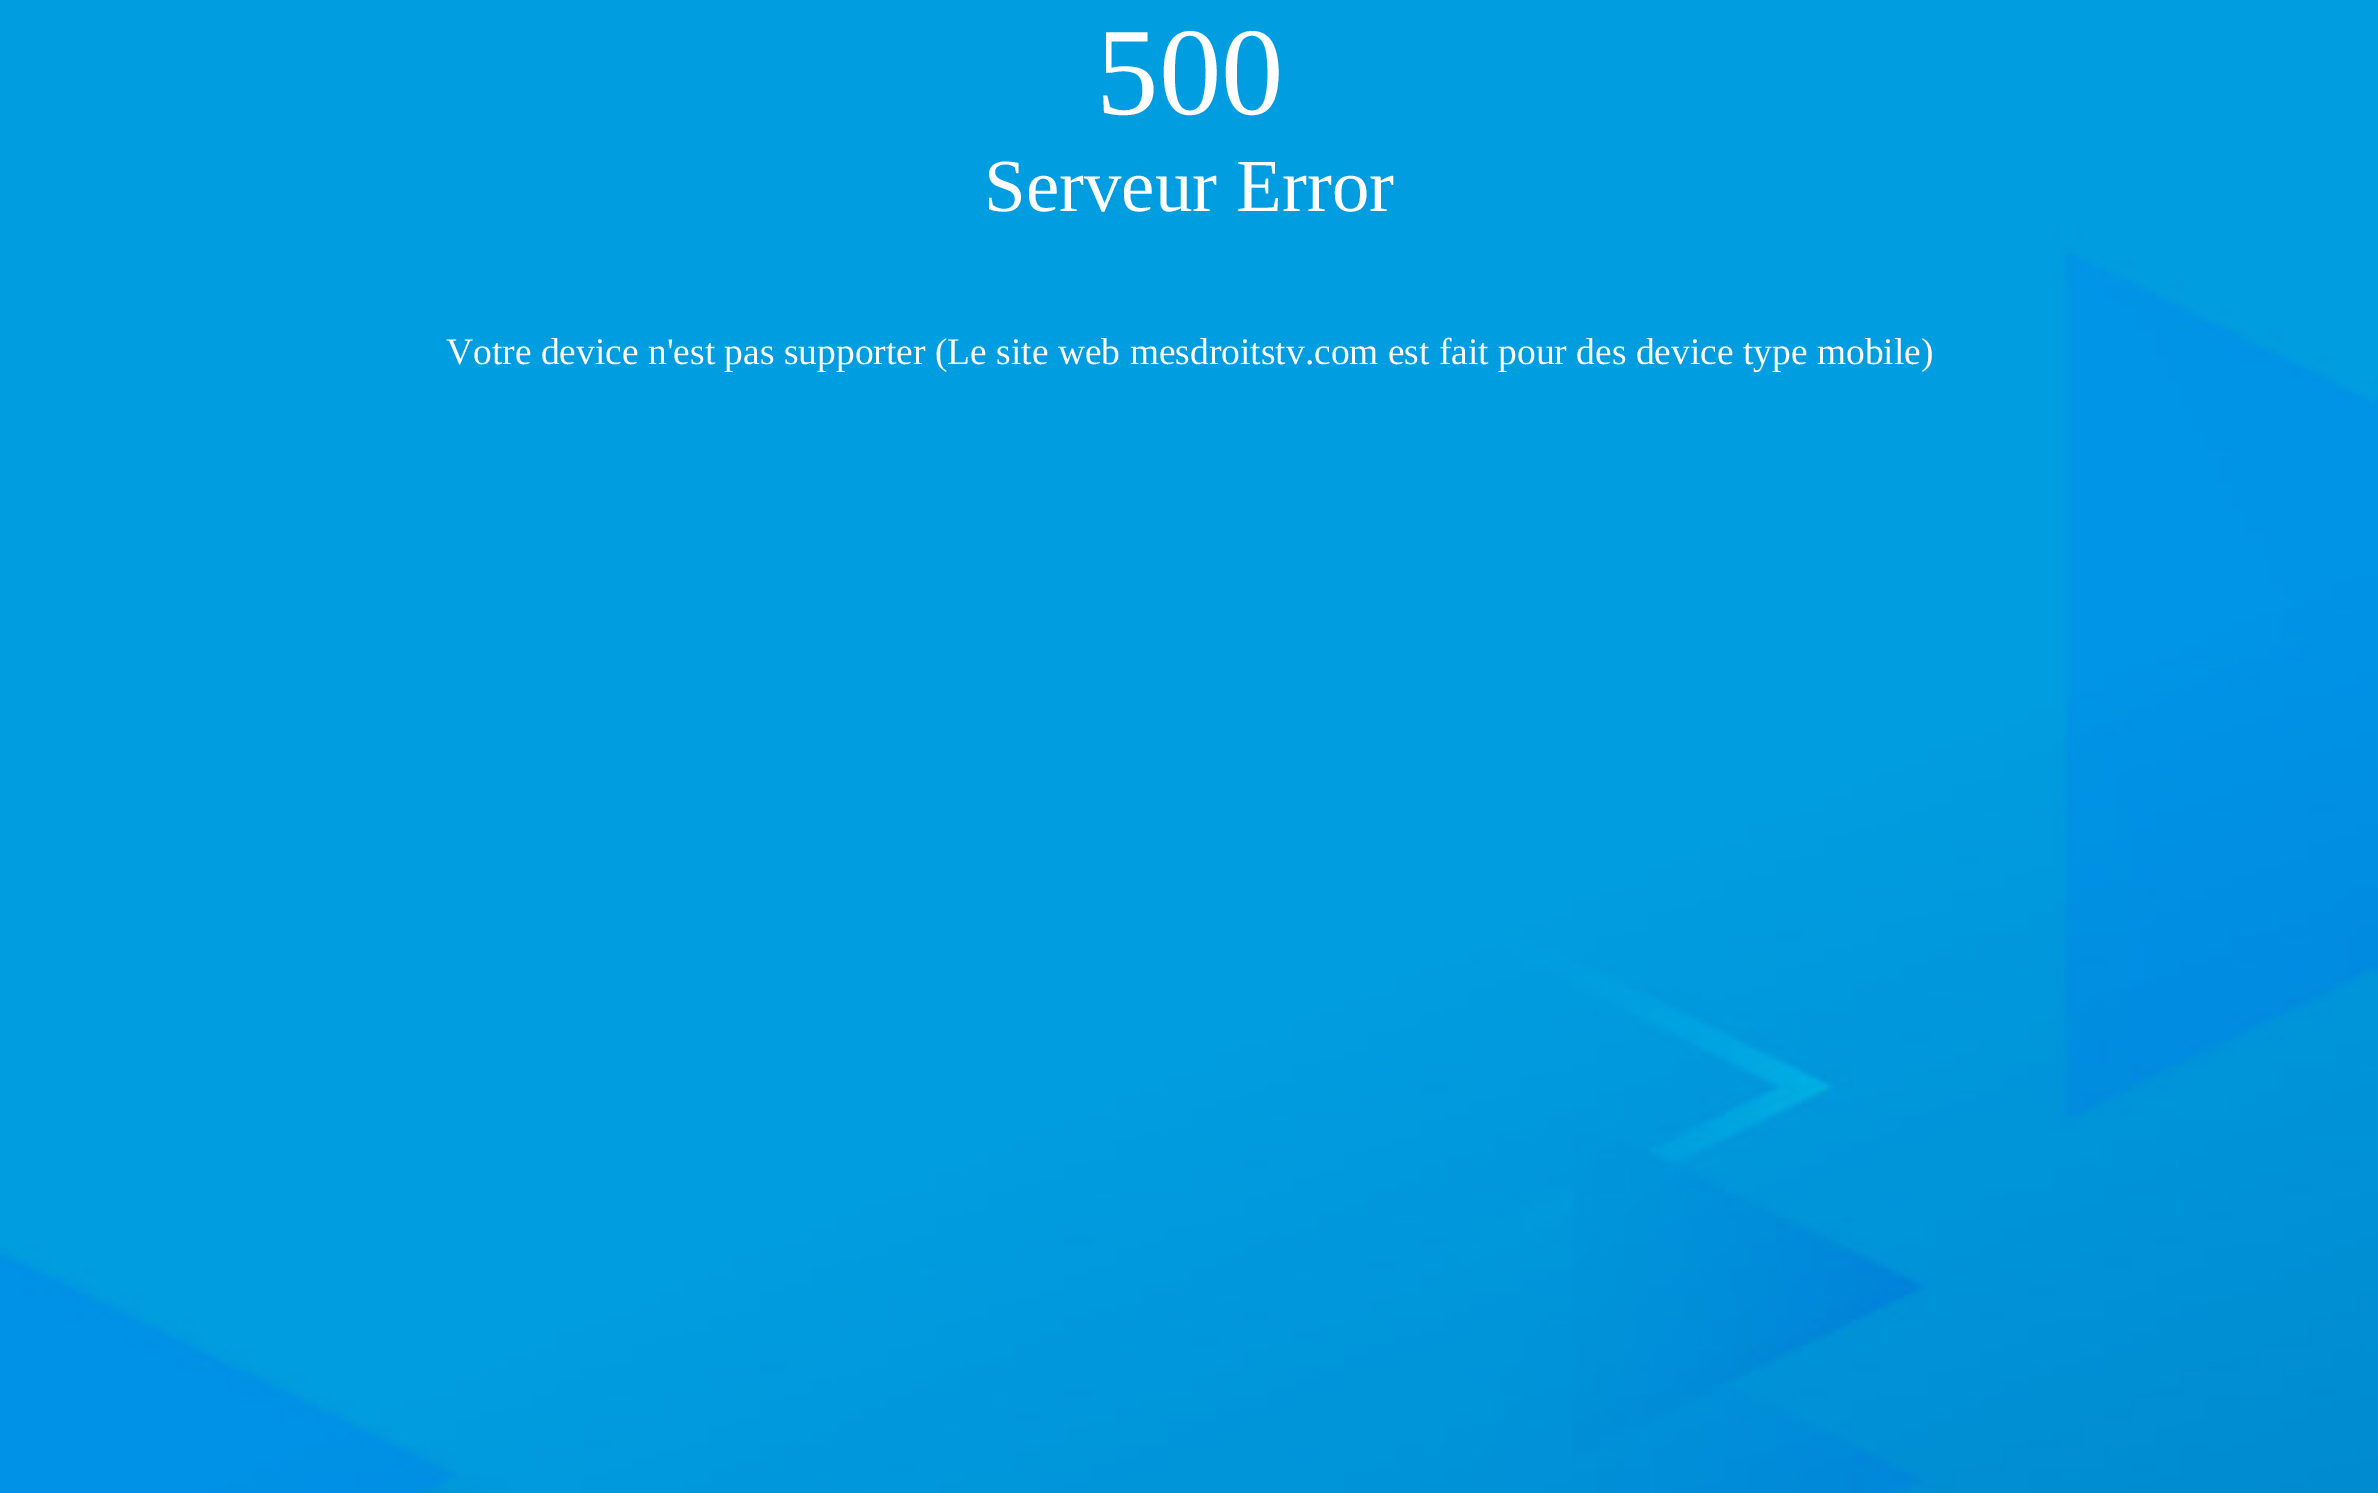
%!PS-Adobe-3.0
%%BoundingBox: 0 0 2378 1493
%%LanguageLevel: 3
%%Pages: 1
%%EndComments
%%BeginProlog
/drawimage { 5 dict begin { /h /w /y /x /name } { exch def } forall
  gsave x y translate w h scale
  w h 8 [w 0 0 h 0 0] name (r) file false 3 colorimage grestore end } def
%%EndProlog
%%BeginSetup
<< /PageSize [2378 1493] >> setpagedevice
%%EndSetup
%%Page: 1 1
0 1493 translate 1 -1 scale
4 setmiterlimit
1 setgray
0 0 2378 1493 rectfill
(images/1.raw) 0 0 2378 1493 drawimage
/LiberationSerif-Regular [125 0 0 -125 0 0] selectfont
1096 114 moveto (500) show
/LiberationSerif-Regular [75 0 0 -75 0 0] selectfont
984 211 moveto (Serveur Error) show
/LiberationSerif-Regular [37.5 0 0 -37.5 0 0] selectfont
446 364 moveto (Votre device n'est pas supporter \(Le site web mesdroitstv.com est fait pour des device type mobile\)) show
showpage
%%EOF
